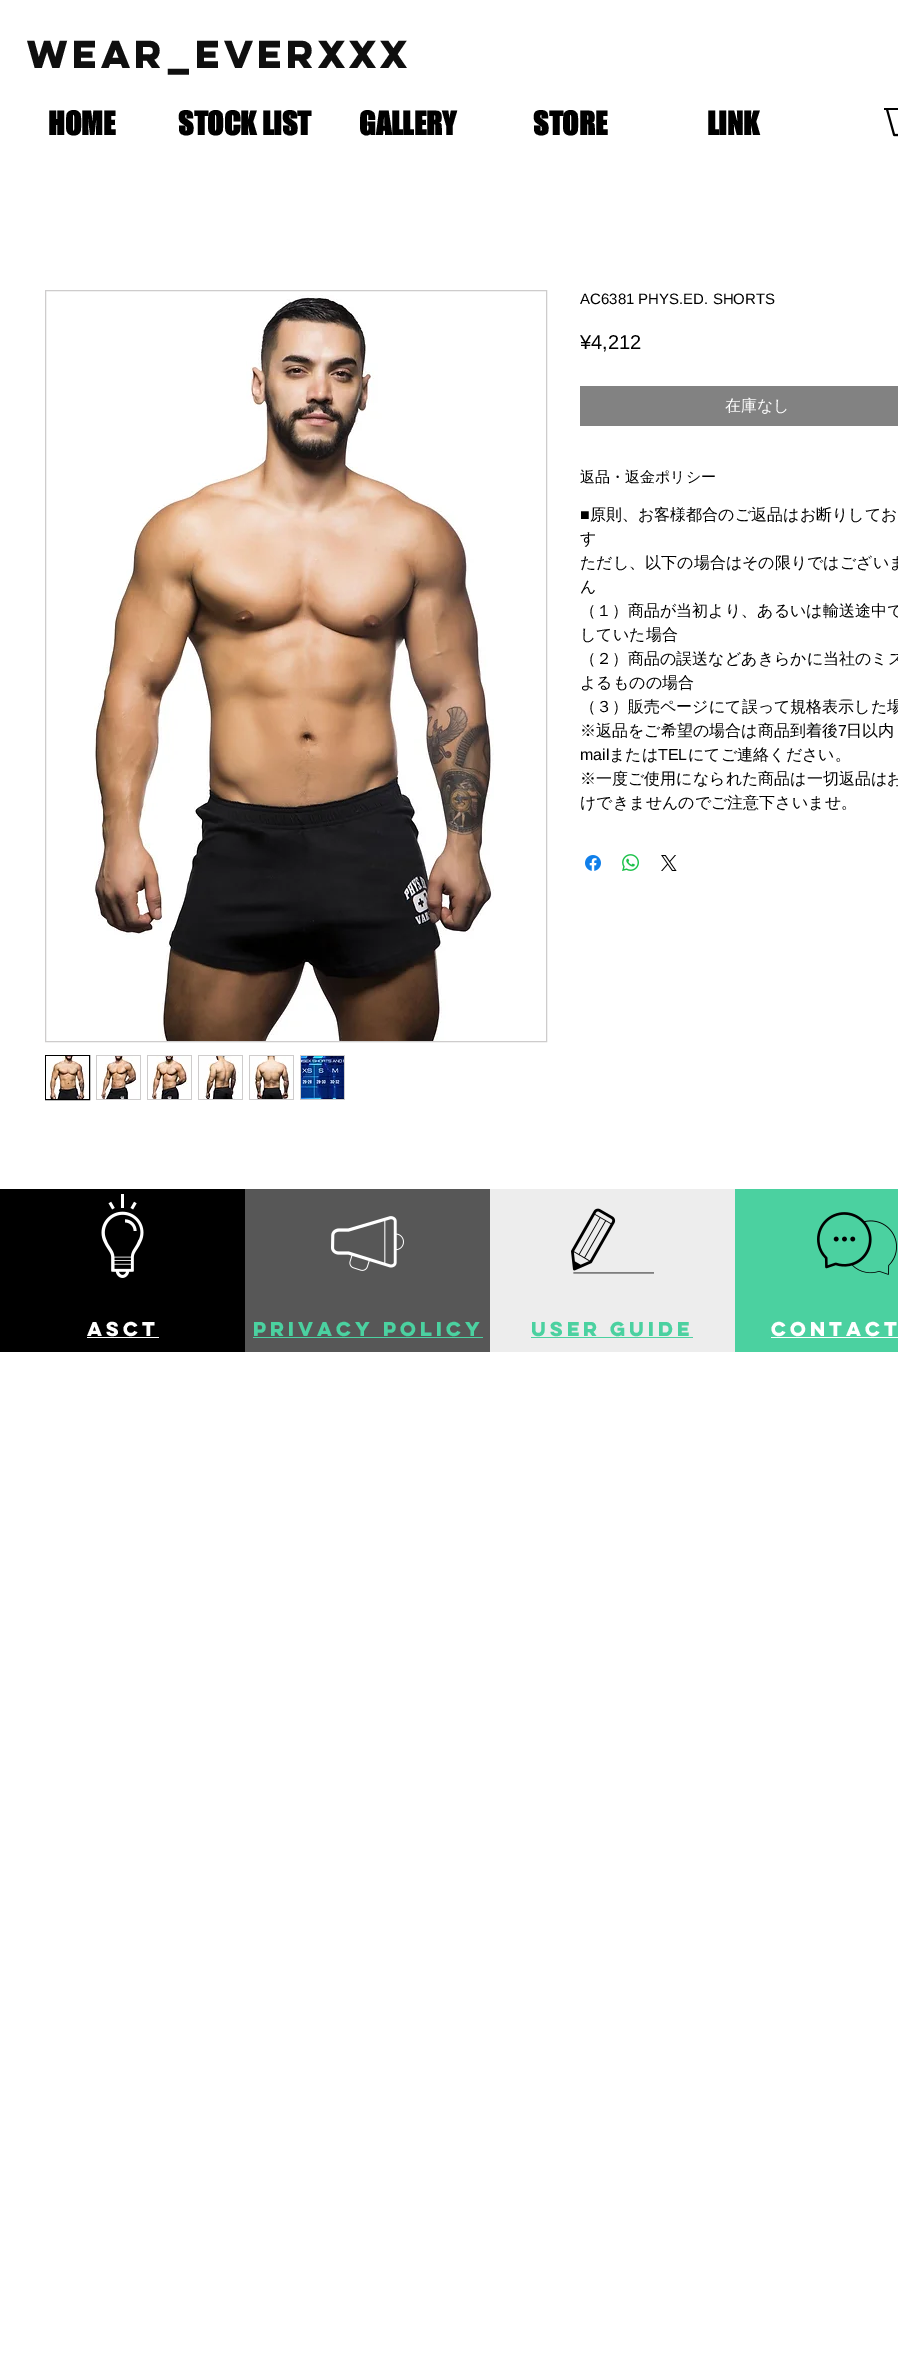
%!PS-Adobe-3.0
%%BoundingBox: 0 0 898 2364
%%LanguageLevel: 3
%%Pages: 1
%%EndComments
%%BeginProlog
/drawimage { 5 dict begin { /h /w /y /x /name } { exch def } forall
  gsave x y translate w h scale
  w h 8 [w 0 0 h 0 0] name (r) file false 3 colorimage grestore end } def
%%EndProlog
%%BeginSetup
<< /PageSize [898 2364] >> setpagedevice
%%EndSetup
%%Page: 1 1
0 2364 translate 1 -1 scale
4 setmiterlimit
1 setgray
0 0 898 2364 rectfill
(images/1.raw) 884 108 14 29 drawimage
0.808 0.8 0.8 setrgbcolor
45.5 290.5 501 751 rectstroke
(images/2.raw) 94 295 400 746 drawimage
0 setgray
45.5 1055.5 44 44 rectstroke
(images/3.raw) 46 1056 43 43 drawimage
0.808 0.8 0.8 setrgbcolor
96 1055 45 45 rectfill
(images/4.raw) 97 1056 43 43 drawimage
147 1055 45 45 rectfill
(images/5.raw) 148 1056 43 43 drawimage
198 1055 45 45 rectfill
(images/6.raw) 199 1056 43 43 drawimage
249 1055 45 45 rectfill
(images/7.raw) 250 1056 43 43 drawimage
300 1055 45 45 rectfill
(images/8.raw) 301 1056 43 43 drawimage
0.51 setgray
580 386 318 40 rectfill
(images/9.raw) 585 855 16 16 drawimage
(images/10.raw) 622 854 17 17 drawimage
(images/11.raw) 661 855 16 16 drawimage
0 setgray
0 1189 245 163 rectfill
(images/12.raw) 101 1194 43 84 drawimage
1 setgray
87 1337 72 1 rectfill
0.341 setgray
245 1189 245 163 rectfill
(images/13.raw) 331 1216 73 55 drawimage
0.294 0.82 0.627 setrgbcolor
253 1337 230 1 rectfill
0.929 setgray
490 1189 245 163 rectfill
(images/14.raw) 571 1208 83 66 drawimage
0.294 0.82 0.627 setrgbcolor
531 1337 162 1 rectfill
735 1189 163 163 rectfill
(images/15.raw) 817 1212 80 63 drawimage
1 setgray
771 1337 127 1 rectfill
/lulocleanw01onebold-Bold [35 0 0 -35 0 0] selectfont
0.059 setgray
27 68 moveto -3.5 0 (wear_everxxx) ashow
/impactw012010-Bold [30 0 0 -30 0 0] selectfont
0 setgray
48 135 moveto (HOME) show
178 135 moveto (STOCK LIST) show
359 135 moveto (GALLERY) show
533 135 moveto (STORE) show
707 135 moveto (LINK) show
/LiberationSans-Regular [15 0 0 -15 0 0] selectfont
580 304 moveto (AC6381 PHYS.ED. SHORTS) show
/LiberationSans-Regular [20 0 0 -20 0 0] selectfont
580 349 moveto (¥4,212) show
/WenQuanYiZenHei-Medium [16 0 0 -16 0 0] selectfont
1 setgray
725 411 moveto (在庫なし) show
/WenQuanYiZenHei-Medium [15 0 0 -15 0 0] selectfont
0 setgray
580 482 moveto (返品・返金ポリシー) show
/LiberationSans-Regular [16 0 0 -16 0 0] selectfont
580 520 moveto (■) show
/WenQuanYiZenHei-Medium [16 0 0 -16 0 0] selectfont
590 520 moveto (原則、お客様都合のご返品はお断りしてお) show
580 544 moveto (す) show
580 568 moveto (ただし、以下の場合はその限りではございま) show
580 592 moveto (ん) show
580 616 moveto (（１）商品が当初より、あるいは輸送途中で) show
580 640 moveto (していた場合) show
580 664 moveto (（２）商品の誤送などあきらかに当社のミス) show
580 688 moveto (よるものの場合) show
580 712 moveto (（３）販売ページにて誤って規格表示した場) show
580 736 moveto (※返品をご希望の場合は商品到着後) show
/LiberationSans-Regular [16 0 0 -16 0 0] selectfont
838 736 moveto (7) show
/WenQuanYiZenHei-Medium [16 0 0 -16 0 0] selectfont
846 736 moveto (日以内) show
/LiberationSans-Regular [16 0 0 -16 0 0] selectfont
580 760 moveto (mail) show
/WenQuanYiZenHei-Medium [16 0 0 -16 0 0] selectfont
609 760 moveto (または) show
/LiberationSans-Regular [16 0 0 -16 0 0] selectfont
658 760 moveto (TEL) show
/WenQuanYiZenHei-Medium [16 0 0 -16 0 0] selectfont
688 760 moveto (にてご連絡ください。) show
580 784 moveto (※一度ご使用になられた商品は一切返品はお) show
580 808 moveto (けできませんのでご注意下さいませ。) show
/lulocleanw01onebold-Bold [18 0 0 -18 0 0] selectfont
1 setgray
87 1336 moveto (ASCT) show
0.294 0.82 0.627 setrgbcolor
253 1336 moveto (privacy policy) show
531 1336 moveto (User Guide) show
1 setgray
771 1336 moveto (Contact) show
showpage
%%EOF
